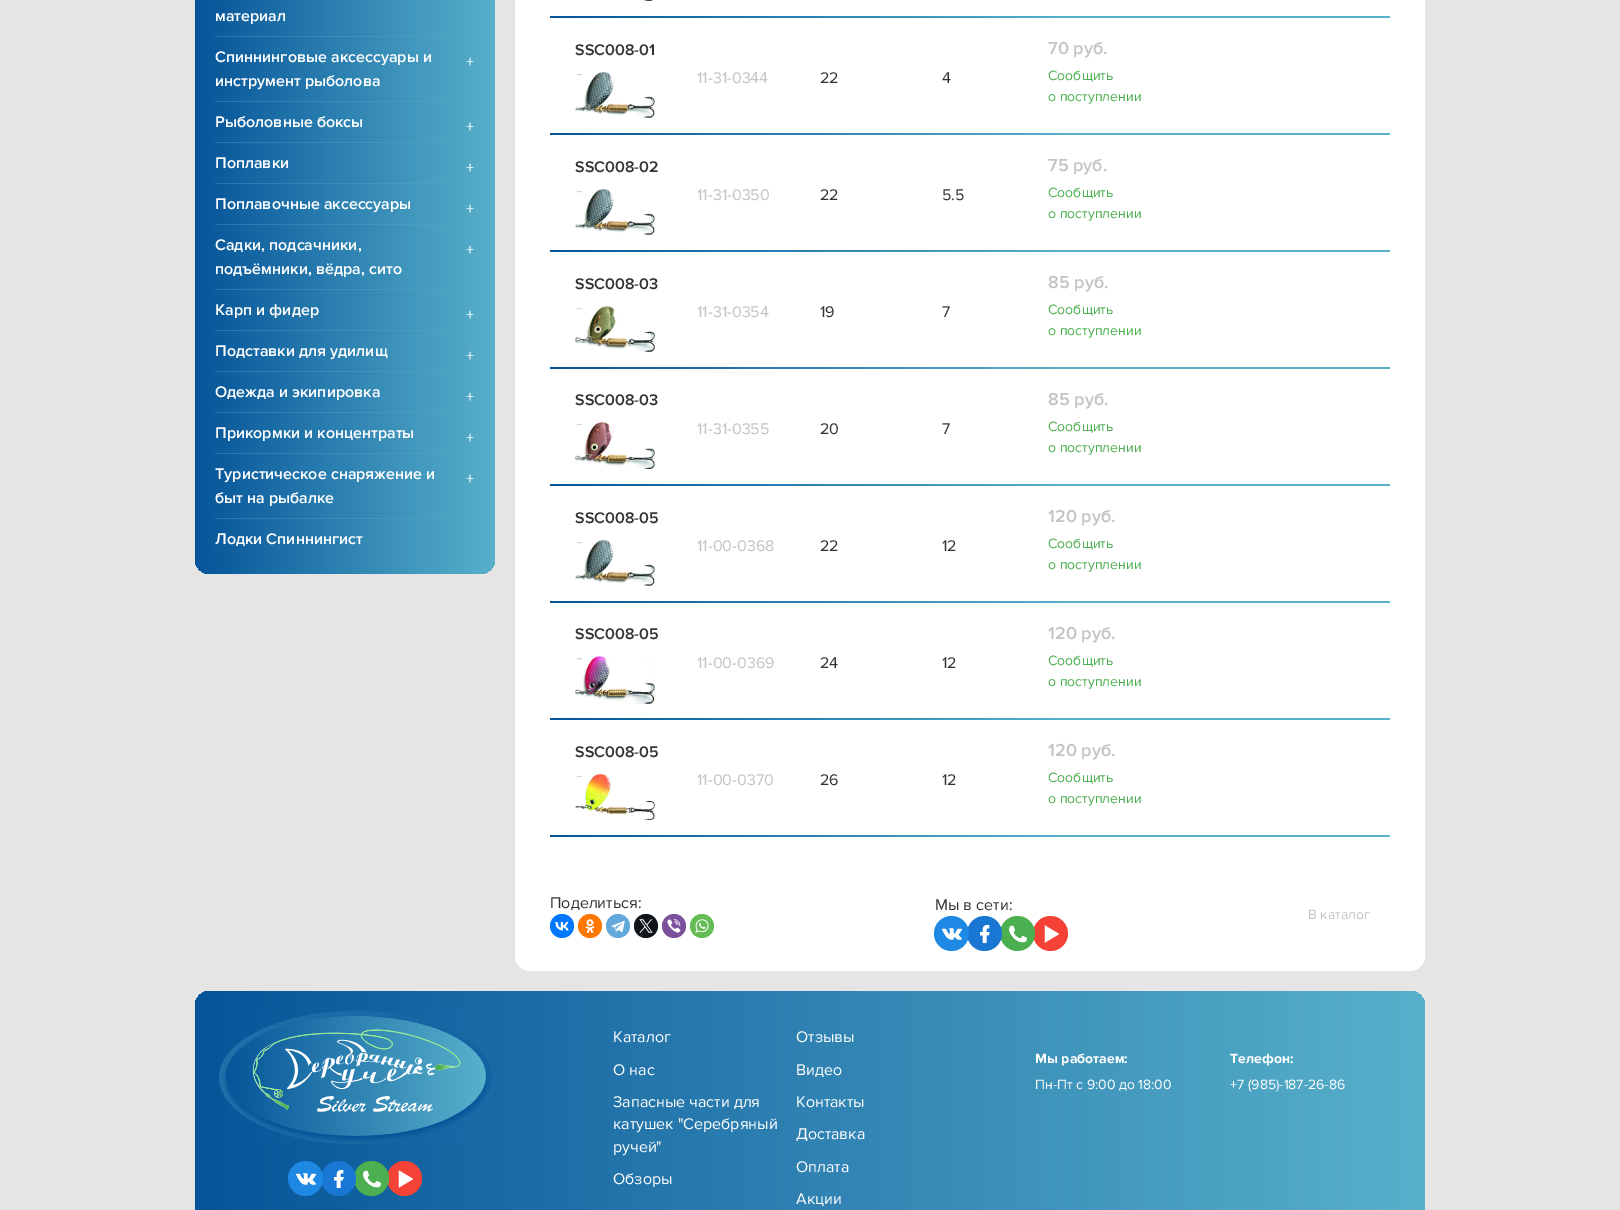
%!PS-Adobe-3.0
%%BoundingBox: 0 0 1620 1210
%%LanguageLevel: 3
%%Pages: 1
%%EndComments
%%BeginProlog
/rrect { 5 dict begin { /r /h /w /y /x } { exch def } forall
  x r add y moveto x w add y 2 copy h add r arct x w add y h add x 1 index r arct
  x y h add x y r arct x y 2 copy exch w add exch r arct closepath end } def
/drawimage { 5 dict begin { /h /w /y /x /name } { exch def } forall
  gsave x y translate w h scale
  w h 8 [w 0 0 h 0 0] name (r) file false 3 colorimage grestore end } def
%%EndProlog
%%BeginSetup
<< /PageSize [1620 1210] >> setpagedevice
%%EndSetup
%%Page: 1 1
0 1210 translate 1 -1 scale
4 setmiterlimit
0.898 setgray
0 0 1620 1210 rectfill
gsave 195 -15 300 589 15 rrect clip newpath
<< /ShadingType 2 /ColorSpace /DeviceRGB /Coords [195 -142 495 -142] /Extend [true true] /Function << /FunctionType 2 /Domain [0 1] /C0 [0.02 0.329 0.6] /C1 [0.345 0.694 0.796] /N 1 >> >> shfill grestore
gsave newpath 215 518 moveto 445 518 lineto 445 519 lineto 215 519 lineto closepath clip newpath
<< /ShadingType 2 /ColorSpace /DeviceRGB /Coords [195 -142 495 -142] /Extend [true true] /Function << /FunctionType 2 /Domain [0 1] /C0 [0.118 0.439 0.659] /C1 [0.345 0.694 0.796] /N 1 >> >> shfill grestore
gsave newpath 215 453 moveto 445 453 lineto 445 454 lineto 215 454 lineto closepath clip newpath
<< /ShadingType 2 /ColorSpace /DeviceRGB /Coords [195 -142 495 -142] /Extend [true true] /Function << /FunctionType 2 /Domain [0 1] /C0 [0.118 0.439 0.659] /C1 [0.345 0.694 0.796] /N 1 >> >> shfill grestore
gsave newpath 215 412 moveto 445 412 lineto 445 413 lineto 215 413 lineto closepath clip newpath
<< /ShadingType 2 /ColorSpace /DeviceRGB /Coords [195 -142 495 -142] /Extend [true true] /Function << /FunctionType 2 /Domain [0 1] /C0 [0.118 0.439 0.659] /C1 [0.345 0.694 0.796] /N 1 >> >> shfill grestore
gsave newpath 215 371 moveto 445 371 lineto 445 372 lineto 215 372 lineto closepath clip newpath
<< /ShadingType 2 /ColorSpace /DeviceRGB /Coords [195 -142 495 -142] /Extend [true true] /Function << /FunctionType 2 /Domain [0 1] /C0 [0.118 0.439 0.659] /C1 [0.345 0.694 0.796] /N 1 >> >> shfill grestore
gsave newpath 215 330 moveto 445 330 lineto 445 331 lineto 215 331 lineto closepath clip newpath
<< /ShadingType 2 /ColorSpace /DeviceRGB /Coords [195 -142 495 -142] /Extend [true true] /Function << /FunctionType 2 /Domain [0 1] /C0 [0.118 0.439 0.659] /C1 [0.345 0.694 0.796] /N 1 >> >> shfill grestore
gsave newpath 215 289 moveto 445 289 lineto 445 290 lineto 215 290 lineto closepath clip newpath
<< /ShadingType 2 /ColorSpace /DeviceRGB /Coords [195 -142 495 -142] /Extend [true true] /Function << /FunctionType 2 /Domain [0 1] /C0 [0.118 0.439 0.659] /C1 [0.345 0.694 0.796] /N 1 >> >> shfill grestore
gsave newpath 215 224 moveto 445 224 lineto 445 225 lineto 215 225 lineto closepath clip newpath
<< /ShadingType 2 /ColorSpace /DeviceRGB /Coords [195 -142 495 -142] /Extend [true true] /Function << /FunctionType 2 /Domain [0 1] /C0 [0.118 0.439 0.659] /C1 [0.345 0.694 0.796] /N 1 >> >> shfill grestore
gsave newpath 215 183 moveto 445 183 lineto 445 184 lineto 215 184 lineto closepath clip newpath
<< /ShadingType 2 /ColorSpace /DeviceRGB /Coords [195 -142 495 -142] /Extend [true true] /Function << /FunctionType 2 /Domain [0 1] /C0 [0.118 0.439 0.659] /C1 [0.345 0.694 0.796] /N 1 >> >> shfill grestore
gsave newpath 215 142 moveto 445 142 lineto 445 143 lineto 215 143 lineto closepath clip newpath
<< /ShadingType 2 /ColorSpace /DeviceRGB /Coords [195 -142 495 -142] /Extend [true true] /Function << /FunctionType 2 /Domain [0 1] /C0 [0.118 0.439 0.659] /C1 [0.345 0.694 0.796] /N 1 >> >> shfill grestore
gsave newpath 215 101 moveto 445 101 lineto 445 102 lineto 215 102 lineto closepath clip newpath
<< /ShadingType 2 /ColorSpace /DeviceRGB /Coords [195 -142 495 -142] /Extend [true true] /Function << /FunctionType 2 /Domain [0 1] /C0 [0.118 0.439 0.659] /C1 [0.345 0.694 0.796] /N 1 >> >> shfill grestore
gsave newpath 215 36 moveto 445 36 lineto 445 37 lineto 215 37 lineto closepath clip newpath
<< /ShadingType 2 /ColorSpace /DeviceRGB /Coords [195 -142 495 -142] /Extend [true true] /Function << /FunctionType 2 /Domain [0 1] /C0 [0.118 0.439 0.659] /C1 [0.345 0.694 0.796] /N 1 >> >> shfill grestore
1 setgray
515 -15 910 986 15 rrect fill
(images/1.raw) 640 0 14 1 drawimage
gsave newpath 550 16 moveto 1390 16 lineto 1390 18 lineto 550 18 lineto closepath clip newpath
<< /ShadingType 2 /ColorSpace /DeviceRGB /Coords [1390 17 550 17] /Extend [true true] /Function << /FunctionType 3 /Domain [0 1] /Functions [<< /FunctionType 2 /Domain [0 1] /C0 [0.345 0.694 0.796] /C1 [0.345 0.694 0.796] /N 1 >> << /FunctionType 2 /Domain [0 1] /C0 [0.345 0.694 0.796] /C1 [0.02 0.329 0.6] /N 1 >>] /Bounds [0.38] /Encode [0 1 0 1] >> >> shfill grestore
(images/2.raw) 575 72 80 46 drawimage
gsave newpath 550 133 moveto 1390 133 lineto 1390 135 lineto 550 135 lineto closepath clip newpath
<< /ShadingType 2 /ColorSpace /DeviceRGB /Coords [1390 134 550 134] /Extend [true true] /Function << /FunctionType 3 /Domain [0 1] /Functions [<< /FunctionType 2 /Domain [0 1] /C0 [0.345 0.694 0.796] /C1 [0.345 0.694 0.796] /N 1 >> << /FunctionType 2 /Domain [0 1] /C0 [0.345 0.694 0.796] /C1 [0.02 0.329 0.6] /N 1 >>] /Bounds [0.38] /Encode [0 1 0 1] >> >> shfill grestore
(images/2.raw) 575 189 80 46 drawimage
gsave newpath 550 250 moveto 1390 250 lineto 1390 252 lineto 550 252 lineto closepath clip newpath
<< /ShadingType 2 /ColorSpace /DeviceRGB /Coords [1390 251 550 251] /Extend [true true] /Function << /FunctionType 3 /Domain [0 1] /Functions [<< /FunctionType 2 /Domain [0 1] /C0 [0.345 0.694 0.796] /C1 [0.345 0.694 0.796] /N 1 >> << /FunctionType 2 /Domain [0 1] /C0 [0.345 0.694 0.796] /C1 [0.02 0.329 0.6] /N 1 >>] /Bounds [0.38] /Encode [0 1 0 1] >> >> shfill grestore
(images/3.raw) 575 306 80 46 drawimage
gsave newpath 550 367 moveto 1390 367 lineto 1390 369 lineto 550 369 lineto closepath clip newpath
<< /ShadingType 2 /ColorSpace /DeviceRGB /Coords [1390 368 550 368] /Extend [true true] /Function << /FunctionType 3 /Domain [0 1] /Functions [<< /FunctionType 2 /Domain [0 1] /C0 [0.345 0.694 0.796] /C1 [0.345 0.694 0.796] /N 1 >> << /FunctionType 2 /Domain [0 1] /C0 [0.345 0.694 0.796] /C1 [0.02 0.329 0.6] /N 1 >>] /Bounds [0.38] /Encode [0 1 0 1] >> >> shfill grestore
(images/4.raw) 575 422 80 47 drawimage
gsave newpath 550 484 moveto 1390 484 lineto 1390 486 lineto 550 486 lineto closepath clip newpath
<< /ShadingType 2 /ColorSpace /DeviceRGB /Coords [1390 485 550 485] /Extend [true true] /Function << /FunctionType 3 /Domain [0 1] /Functions [<< /FunctionType 2 /Domain [0 1] /C0 [0.345 0.694 0.796] /C1 [0.345 0.694 0.796] /N 1 >> << /FunctionType 2 /Domain [0 1] /C0 [0.345 0.694 0.796] /C1 [0.02 0.329 0.6] /N 1 >>] /Bounds [0.38] /Encode [0 1 0 1] >> >> shfill grestore
(images/2.raw) 575 540 80 46 drawimage
gsave newpath 550 601 moveto 1390 601 lineto 1390 603 lineto 550 603 lineto closepath clip newpath
<< /ShadingType 2 /ColorSpace /DeviceRGB /Coords [1390 602 550 602] /Extend [true true] /Function << /FunctionType 3 /Domain [0 1] /Functions [<< /FunctionType 2 /Domain [0 1] /C0 [0.345 0.694 0.796] /C1 [0.345 0.694 0.796] /N 1 >> << /FunctionType 2 /Domain [0 1] /C0 [0.345 0.694 0.796] /C1 [0.02 0.329 0.6] /N 1 >>] /Bounds [0.38] /Encode [0 1 0 1] >> >> shfill grestore
(images/5.raw) 575 656 80 48 drawimage
gsave newpath 550 718 moveto 1390 718 lineto 1390 720 lineto 550 720 lineto closepath clip newpath
<< /ShadingType 2 /ColorSpace /DeviceRGB /Coords [1390 719 550 719] /Extend [true true] /Function << /FunctionType 3 /Domain [0 1] /Functions [<< /FunctionType 2 /Domain [0 1] /C0 [0.345 0.694 0.796] /C1 [0.345 0.694 0.796] /N 1 >> << /FunctionType 2 /Domain [0 1] /C0 [0.345 0.694 0.796] /C1 [0.02 0.329 0.6] /N 1 >>] /Bounds [0.38] /Encode [0 1 0 1] >> >> shfill grestore
(images/6.raw) 575 774 80 46 drawimage
gsave newpath 550 835 moveto 1390 835 lineto 1390 837 lineto 550 837 lineto closepath clip newpath
<< /ShadingType 2 /ColorSpace /DeviceRGB /Coords [1390 836 550 836] /Extend [true true] /Function << /FunctionType 3 /Domain [0 1] /Functions [<< /FunctionType 2 /Domain [0 1] /C0 [0.345 0.694 0.796] /C1 [0.345 0.694 0.796] /N 1 >> << /FunctionType 2 /Domain [0 1] /C0 [0.345 0.694 0.796] /C1 [0.02 0.329 0.6] /N 1 >>] /Bounds [0.38] /Encode [0 1 0 1] >> >> shfill grestore
0 0.467 1 setrgbcolor
newpath 562 926 12 0 360 arc closepath fill
(images/7.raw) 555 922 14 9 drawimage
1 0.467 0 setrgbcolor
newpath 590 926 12 0 360 arc closepath fill
(images/8.raw) 585 919 10 14 drawimage
0.392 0.663 0.863 setrgbcolor
newpath 618 926 12 0 360 arc closepath fill
(images/9.raw) 611 921 14 12 drawimage
0.059 0.078 0.098 setrgbcolor
newpath 646 926 12 0 360 arc closepath fill
(images/10.raw) 639 919 14 14 drawimage
0.482 0.318 0.616 setrgbcolor
newpath 674 926 12 0 360 arc closepath fill
(images/11.raw) 667 919 14 14 drawimage
0.396 0.737 0.329 setrgbcolor
newpath 702 926 12 0 360 arc closepath fill
(images/12.raw) 695 919 14 14 drawimage
0.957 0.263 0.212 setrgbcolor
newpath 1050.5 933.5 17.5 0 360 arc closepath fill
0.298 0.686 0.314 setrgbcolor
newpath 1017.5 933.5 17.5 0 360 arc closepath fill
0.098 0.463 0.824 setrgbcolor
newpath 984.5 933.5 17.5 0 360 arc closepath fill
0.118 0.533 0.898 setrgbcolor
newpath 951.5 933.5 17.5 0 360 arc closepath fill
(images/13.raw) 942 928 20 12 drawimage
(images/14.raw) 980 925 10 18 drawimage
(images/15.raw) 1009 925 18 18 drawimage
(images/16.raw) 1044 925 16 18 drawimage
gsave 195 991 1230 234 15 rrect clip newpath
<< /ShadingType 2 /ColorSpace /DeviceRGB /Coords [195 1119 1425 1119] /Extend [true true] /Function << /FunctionType 2 /Domain [0 1] /C0 [0.02 0.329 0.6] /C1 [0.345 0.694 0.796] /N 1 >> >> shfill grestore
(images/17.raw) 219 1011 273 133 drawimage
0.957 0.263 0.212 setrgbcolor
newpath 404.5 1178.5 17.5 0 360 arc closepath fill
0.298 0.686 0.314 setrgbcolor
newpath 371.5 1178.5 17.5 0 360 arc closepath fill
0.098 0.463 0.824 setrgbcolor
newpath 338.5 1178.5 17.5 0 360 arc closepath fill
0.118 0.533 0.898 setrgbcolor
newpath 305.5 1178.5 17.5 0 360 arc closepath fill
(images/13.raw) 296 1173 20 12 drawimage
(images/14.raw) 334 1170 10 18 drawimage
(images/15.raw) 363 1170 18 18 drawimage
(images/16.raw) 398 1170 16 18 drawimage
/ProximaNova-SemiBold [16 0 0 -16 0 0] selectfont
1 setgray
215 21 moveto (материал) show
215 62 moveto (Спиннинговые аксессуары и) show
215 86 moveto (инструмент рыболова) show
/ProximaNova-Regular [16 0 0 -16 0 0] selectfont
466 67 moveto (+) show
/ProximaNova-SemiBold [16 0 0 -16 0 0] selectfont
215 127 moveto (Рыболовные боксы) show
/ProximaNova-Regular [16 0 0 -16 0 0] selectfont
466 132 moveto (+) show
/ProximaNova-SemiBold [16 0 0 -16 0 0] selectfont
215 168 moveto (Поплавки) show
/ProximaNova-Regular [16 0 0 -16 0 0] selectfont
466 173 moveto (+) show
/ProximaNova-SemiBold [16 0 0 -16 0 0] selectfont
215 209 moveto (Поплавочные аксессуары) show
/ProximaNova-Regular [16 0 0 -16 0 0] selectfont
466 214 moveto (+) show
/ProximaNova-SemiBold [16 0 0 -16 0 0] selectfont
215 250 moveto (Садки, подсачники,) show
215 274 moveto (подъёмники, вёдра, сито) show
/ProximaNova-Regular [16 0 0 -16 0 0] selectfont
466 255 moveto (+) show
/ProximaNova-SemiBold [16 0 0 -16 0 0] selectfont
215 315 moveto (Карп и фидер) show
/ProximaNova-Regular [16 0 0 -16 0 0] selectfont
466 320 moveto (+) show
/ProximaNova-SemiBold [16 0 0 -16 0 0] selectfont
215 356 moveto (Подставки для удилищ) show
/ProximaNova-Regular [16 0 0 -16 0 0] selectfont
466 361 moveto (+) show
/ProximaNova-SemiBold [16 0 0 -16 0 0] selectfont
215 397 moveto (Одежда и экипировка) show
/ProximaNova-Regular [16 0 0 -16 0 0] selectfont
466 402 moveto (+) show
/ProximaNova-SemiBold [16 0 0 -16 0 0] selectfont
215 438 moveto (Прикормки и концентраты) show
/ProximaNova-Regular [16 0 0 -16 0 0] selectfont
466 443 moveto (+) show
/ProximaNova-SemiBold [16 0 0 -16 0 0] selectfont
215 479 moveto (Туристическое снаряжение и) show
215 503 moveto (быт на рыбалке) show
/ProximaNova-Regular [16 0 0 -16 0 0] selectfont
466 484 moveto (+) show
/ProximaNova-SemiBold [16 0 0 -16 0 0] selectfont
215 544 moveto (Лодки Спиннингист) show
0.2 setgray
575 55 moveto (SSC008-01) show
/ProximaNova-SemiBold [18 0 0 -18 0 0] selectfont
0.769 setgray
1048 54 moveto (70 руб.) show
/ProximaNova-Regular [14 0 0 -14 0 0] selectfont
0.298 0.686 0.314 setrgbcolor
1048 80 moveto (Сообщить) show
1048 101 moveto (о поступлении) show
/ProximaNova-Regular [16 0 0 -16 0 0] selectfont
0.769 setgray
697 83 moveto (11-31-0344) show
0.2 setgray
820 83 moveto (22) show
942 83 moveto (4) show
/ProximaNova-SemiBold [16 0 0 -16 0 0] selectfont
575 172 moveto (SSC008-02) show
/ProximaNova-SemiBold [18 0 0 -18 0 0] selectfont
0.769 setgray
1048 171 moveto (75 руб.) show
/ProximaNova-Regular [14 0 0 -14 0 0] selectfont
0.298 0.686 0.314 setrgbcolor
1048 197 moveto (Сообщить) show
1048 218 moveto (о поступлении) show
/ProximaNova-Regular [16 0 0 -16 0 0] selectfont
0.769 setgray
697 200 moveto (11-31-0350) show
0.2 setgray
820 200 moveto (22) show
942 200 moveto (5.5) show
/ProximaNova-SemiBold [16 0 0 -16 0 0] selectfont
575 289 moveto (SSC008-03) show
/ProximaNova-SemiBold [18 0 0 -18 0 0] selectfont
0.769 setgray
1048 288 moveto (85 руб.) show
/ProximaNova-Regular [14 0 0 -14 0 0] selectfont
0.298 0.686 0.314 setrgbcolor
1048 314 moveto (Сообщить) show
1048 335 moveto (о поступлении) show
/ProximaNova-Regular [16 0 0 -16 0 0] selectfont
0.769 setgray
697 317 moveto (11-31-0354) show
0.2 setgray
820 317 moveto (19) show
942 317 moveto (7) show
/ProximaNova-SemiBold [16 0 0 -16 0 0] selectfont
575 405 moveto (SSC008-03) show
/ProximaNova-SemiBold [18 0 0 -18 0 0] selectfont
0.769 setgray
1048 405 moveto (85 руб.) show
/ProximaNova-Regular [14 0 0 -14 0 0] selectfont
0.298 0.686 0.314 setrgbcolor
1048 431 moveto (Сообщить) show
1048 452 moveto (о поступлении) show
/ProximaNova-Regular [16 0 0 -16 0 0] selectfont
0.769 setgray
697 434 moveto (11-31-0355) show
0.2 setgray
820 434 moveto (20) show
942 434 moveto (7) show
/ProximaNova-SemiBold [16 0 0 -16 0 0] selectfont
575 523 moveto (SSC008-05) show
/ProximaNova-SemiBold [18 0 0 -18 0 0] selectfont
0.769 setgray
1048 522 moveto (120 руб.) show
/ProximaNova-Regular [14 0 0 -14 0 0] selectfont
0.298 0.686 0.314 setrgbcolor
1048 548 moveto (Сообщить) show
1048 569 moveto (о поступлении) show
/ProximaNova-Regular [16 0 0 -16 0 0] selectfont
0.769 setgray
697 551 moveto (11-00-0368) show
0.2 setgray
820 551 moveto (22) show
942 551 moveto (12) show
/ProximaNova-SemiBold [16 0 0 -16 0 0] selectfont
575 639 moveto (SSC008-05) show
/ProximaNova-SemiBold [18 0 0 -18 0 0] selectfont
0.769 setgray
1048 639 moveto (120 руб.) show
/ProximaNova-Regular [14 0 0 -14 0 0] selectfont
0.298 0.686 0.314 setrgbcolor
1048 665 moveto (Сообщить) show
1048 686 moveto (о поступлении) show
/ProximaNova-Regular [16 0 0 -16 0 0] selectfont
0.769 setgray
697 668 moveto (11-00-0369) show
0.2 setgray
820 668 moveto (24) show
942 668 moveto (12) show
/ProximaNova-SemiBold [16 0 0 -16 0 0] selectfont
575 757 moveto (SSC008-05) show
/ProximaNova-SemiBold [18 0 0 -18 0 0] selectfont
0.769 setgray
1048 756 moveto (120 руб.) show
/ProximaNova-Regular [14 0 0 -14 0 0] selectfont
0.298 0.686 0.314 setrgbcolor
1048 782 moveto (Сообщить) show
1048 803 moveto (о поступлении) show
/ProximaNova-Regular [16 0 0 -16 0 0] selectfont
0.769 setgray
697 785 moveto (11-00-0370) show
0.2 setgray
820 785 moveto (26) show
942 785 moveto (12) show
550 908 moveto (Поделиться:) show
935 910 moveto (Мы в сети:) show
/ProximaNova-Regular [14 0 0 -14 0 0] selectfont
0.769 setgray
1308 919 moveto (В каталог) show
/ProximaNova-Regular [16 0 0 -16 0 0] selectfont
1 setgray
613 1042 moveto (Каталог) show
796 1042 moveto (Отзывы) show
613 1075 moveto (О нас) show
796 1075 moveto (Видео) show
613 1107 moveto (Запасные части для) show
613 1129 moveto (катушек "Серебряный) show
613 1152 moveto (ручей") show
796 1107 moveto (Контакты) show
796 1139 moveto (Доставка) show
796 1172 moveto (Оплата) show
613 1184 moveto (Обзоры) show
796 1204 moveto (Акции) show
/ProximaNova-Bold [14 0 0 -14 0 0] selectfont
1035 1063 moveto (Мы работаем:) show
/ProximaNova-Regular [14 0 0 -14 0 0] selectfont
1035 1089 moveto (Пн-Пт с 9:00 до 18:00) show
/ProximaNova-Bold [14 0 0 -14 0 0] selectfont
1230 1063 moveto (Телефон:) show
/ProximaNova-Regular [14 0 0 -14 0 0] selectfont
1230 1089 moveto (+7 \(985\)-187-26-86) show
showpage
%%EOF
